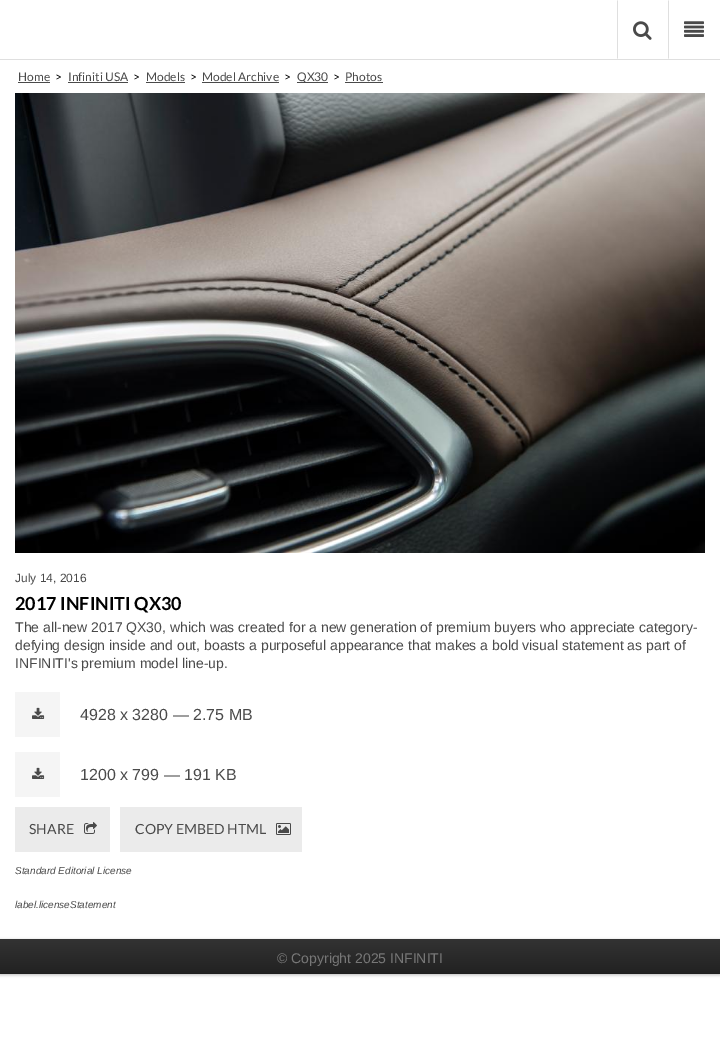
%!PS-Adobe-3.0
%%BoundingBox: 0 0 720 1037
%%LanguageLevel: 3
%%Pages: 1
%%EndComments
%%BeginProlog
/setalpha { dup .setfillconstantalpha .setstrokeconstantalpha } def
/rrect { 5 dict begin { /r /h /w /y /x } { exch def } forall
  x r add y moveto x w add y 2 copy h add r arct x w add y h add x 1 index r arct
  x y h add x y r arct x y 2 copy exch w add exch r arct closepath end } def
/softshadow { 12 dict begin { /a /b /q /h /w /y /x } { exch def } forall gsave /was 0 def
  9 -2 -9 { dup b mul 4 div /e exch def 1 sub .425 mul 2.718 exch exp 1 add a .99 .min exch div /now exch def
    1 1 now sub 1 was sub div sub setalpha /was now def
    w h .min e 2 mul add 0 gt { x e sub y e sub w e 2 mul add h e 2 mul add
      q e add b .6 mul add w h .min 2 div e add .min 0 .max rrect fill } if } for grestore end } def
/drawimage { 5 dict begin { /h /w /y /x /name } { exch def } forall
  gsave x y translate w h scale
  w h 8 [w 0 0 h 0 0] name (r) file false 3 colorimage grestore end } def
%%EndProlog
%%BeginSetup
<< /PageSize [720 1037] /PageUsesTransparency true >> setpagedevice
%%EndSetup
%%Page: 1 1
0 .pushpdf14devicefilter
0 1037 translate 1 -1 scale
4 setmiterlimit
1 setgray
0 0 720 1037 rectfill
0.875 setgray
0 59 720 1 rectfill
newpath 617 59 moveto 617 0 lineto 618 1 lineto 618 58 lineto closepath fill
(images/1.raw) 633 21 19 19 drawimage
newpath 668 59 moveto 668 0 lineto 669 1 lineto 669 58 lineto closepath fill
(images/2.raw) 684 21 20 16 drawimage
0.29 setgray
18 82 32 1 rectfill
68 82 60 1 rectfill
146 82 39 1 rectfill
202 82 77 1 rectfill
297 82 31 1 rectfill
345 82 38 1 rectfill
(images/3.raw) 15 93 690 460 drawimage
0.961 setgray
15 692 45 45 rectfill
(images/4.raw) 32 707 13 12 drawimage
15 752 45 45 rectfill
(images/4.raw) 32 767 13 12 drawimage
0.922 setgray
15 807 95 45 rectfill
(images/5.raw) 84 822 13 12 drawimage
120 807 182 45 rectfill
(images/6.raw) 276 823 15 12 drawimage
0 setgray
0 940 720 35 0 1.5 0.25 softshadow
gsave newpath 0 939 moveto 720 939 lineto 720 973 lineto 0 973 lineto closepath clip newpath
<< /ShadingType 2 /ColorSpace /DeviceRGB /Coords [360 939 360 974] /Extend [true true] /Function << /FunctionType 2 /Domain [0 1] /C0 [0.2 0.2 0.2] /C1 [0.133 0.133 0.133] /N 1 >> >> shfill grestore
0.122 setgray
0 973 720 1 rectfill
/Lato-Regular [12 0 0 -12 0 0] selectfont
0.29 setgray
18 81 moveto (Home) show
0 setgray
55 81 moveto (>) show
0.29 setgray
68 81 moveto (Infiniti USA) show
0 setgray
133 81 moveto (>) show
0.29 setgray
146 81 moveto (Models) show
0 setgray
190 81 moveto (>) show
0.29 setgray
202 81 moveto (Model Archive) show
0 setgray
284 81 moveto (>) show
0.29 setgray
297 81 moveto (QX30) show
0 setgray
333 81 moveto (>) show
0.29 setgray
345 81 moveto (Photos) show
/LiberationSans-Regular [12 0 0 -12 0 0] selectfont
15 582 moveto (July 14, 2016) show
/Lato-Bold [18 0 0 -18 0 0] selectfont
0 setgray
15 610 moveto (2017 INFINITI QX30) show
/LiberationSans-Regular [14 0 0 -14 0 0] selectfont
0.29 setgray
15 632 moveto (The all-new 2017 QX30, which was created for a new generation of premium buyers who appreciate category-) show
15 650 moveto (defying design inside and out, boasts a purposeful appearance that makes a bold visual statement as part of) show
15 668 moveto (INFINITI's premium model line-up.) show
/LiberationSans-Regular [16 0 0 -16 0 0] selectfont
80 720 moveto (4928 x 3280 — 2.75 MB) show
80 780 moveto (1200 x 799 — 191 KB) show
/Lato-Regular [14 0 0 -14 0 0] selectfont
29 834 moveto (SHARE) show
135 834 moveto (COPY EMBED HTML) show
/LiberationSans-Italic [10 0 0 -10 0 0] selectfont
15 874 moveto (Standard Editorial License) show
15 908 moveto (label.licenseStatement) show
/LiberationSans-Regular [14 0 0 -14 0 0] selectfont
0.467 setgray
277 963 moveto (© Copyright 2025 INFINITI) show
.poppdf14devicefilter showpage
%%EOF
